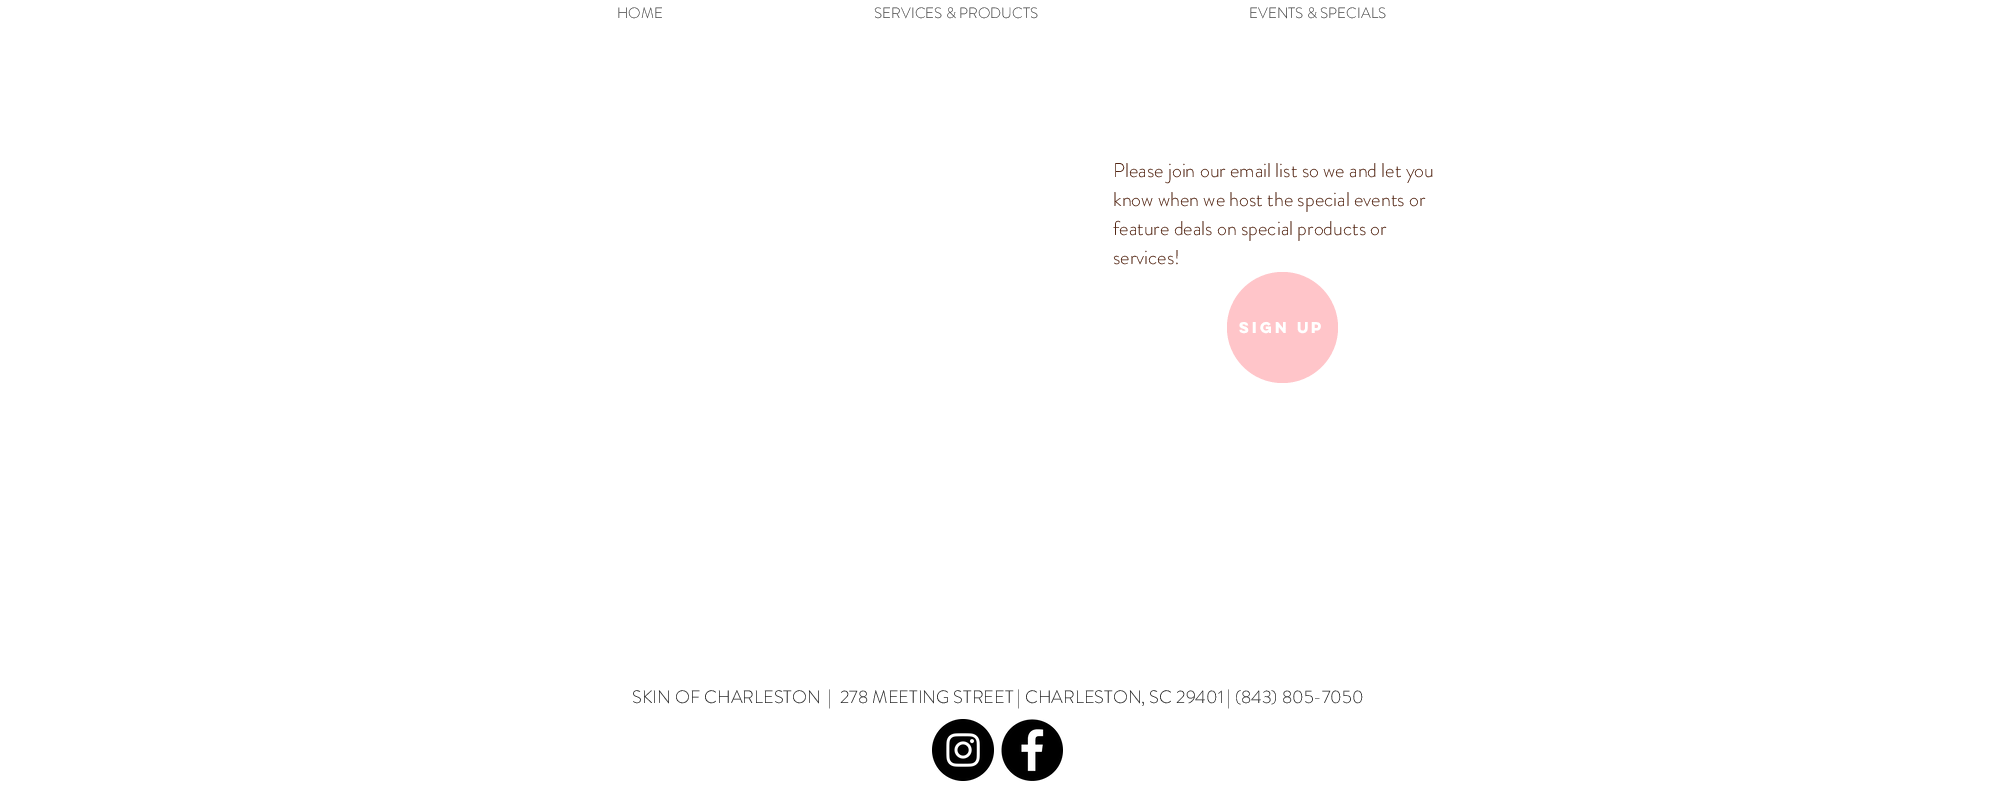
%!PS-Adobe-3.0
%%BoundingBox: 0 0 2003 797
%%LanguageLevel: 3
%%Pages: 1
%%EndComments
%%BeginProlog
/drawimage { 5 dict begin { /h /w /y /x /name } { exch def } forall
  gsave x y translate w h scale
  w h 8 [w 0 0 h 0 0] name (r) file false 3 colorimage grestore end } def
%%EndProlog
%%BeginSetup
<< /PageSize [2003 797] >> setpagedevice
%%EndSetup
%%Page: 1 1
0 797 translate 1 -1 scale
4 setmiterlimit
1 setgray
0 0 2003 797 rectfill
1 0.773 0.788 setrgbcolor
newpath 1282.5 327.5 55.5 0 360 arc closepath fill
(images/1.raw) 932 719 62 62 drawimage
(images/2.raw) 1001 719 62 62 drawimage
/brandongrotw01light-Light [15 0 0 -15 0 0] selectfont
0.267 setgray
617 18 moveto (HOME) show
874 18 moveto (SERVICES & PRODUCTS) show
1249 18 moveto (EVENTS & SPECIALS) show
/brandongrotw01light-Light [20 0 0 -20 0 0] selectfont
0.329 0.153 0.082 setrgbcolor
1113 177 moveto (Please join our email list so we and let you) show
1113 206 moveto (know when we host the special events or) show
1113 235 moveto (feature deals on special products or) show
1113 264 moveto (services!) show
/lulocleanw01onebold-Bold [14 0 0 -14 0 0] selectfont
1 setgray
1239 333 moveto (SIGN UP) show
/brandongrotw01light-Light [18 0 0 -18 0 0] selectfont
0.165 setgray
632 703 moveto (SKIN OF CHARLESTON) show
828 703 moveto (|) show
840 703 moveto (278 MEETING STREET | CHARLESTON, SC 29401 | \(843\) 805-7050) show
showpage
%%EOF
